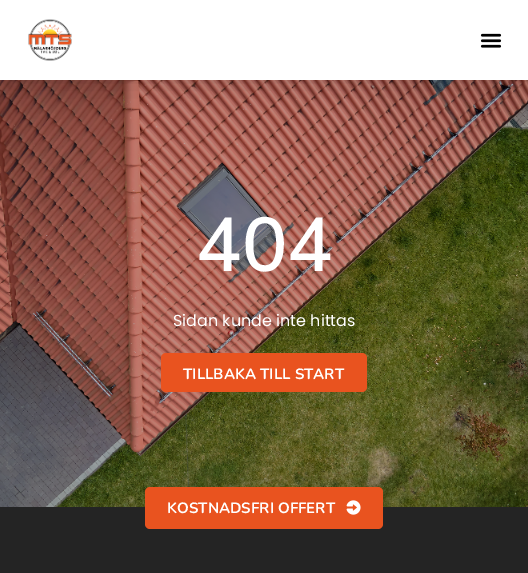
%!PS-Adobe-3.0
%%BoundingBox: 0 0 528 573
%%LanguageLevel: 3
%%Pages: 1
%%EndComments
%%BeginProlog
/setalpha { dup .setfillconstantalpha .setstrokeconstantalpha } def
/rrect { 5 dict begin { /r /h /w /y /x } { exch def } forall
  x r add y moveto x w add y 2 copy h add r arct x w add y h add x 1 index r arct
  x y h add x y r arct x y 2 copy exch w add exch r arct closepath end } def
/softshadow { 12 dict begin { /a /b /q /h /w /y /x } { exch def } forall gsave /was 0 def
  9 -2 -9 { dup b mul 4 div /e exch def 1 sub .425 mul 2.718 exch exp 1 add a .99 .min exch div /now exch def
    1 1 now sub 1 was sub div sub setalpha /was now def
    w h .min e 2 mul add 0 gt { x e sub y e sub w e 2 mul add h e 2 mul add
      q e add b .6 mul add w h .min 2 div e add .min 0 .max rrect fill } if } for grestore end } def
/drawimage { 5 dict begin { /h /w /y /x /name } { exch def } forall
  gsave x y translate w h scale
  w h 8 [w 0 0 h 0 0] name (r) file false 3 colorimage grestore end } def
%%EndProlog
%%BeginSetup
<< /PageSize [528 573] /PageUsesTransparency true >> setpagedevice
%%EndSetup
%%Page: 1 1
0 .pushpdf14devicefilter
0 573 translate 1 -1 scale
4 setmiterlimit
1 setgray
0 0 528 573 rectfill
(images/3.raw) 0 80 528 427 drawimage
0 setgray
10 20 508 60 0 15 0.18 softshadow
1 setgray
0 0 528 80 rectfill
(images/1.raw) 28 19 44 42 drawimage
(images/2.raw) 480 33 22 15 drawimage
0.914 0.325 0.122 setrgbcolor
161 353 206 39 5 rrect fill
0.141 setgray
0 507 528 66 rectfill
0.914 0.325 0.122 setrgbcolor
145 487 238 42 5 rrect fill
(images/4.raw) 346 500 15 15 drawimage
/NunitoSans-SemiBold [76 0 0 -76 0 0] selectfont
1 setgray
196 271 moveto (404) show
/Poppins-Regular [16 0 0 -16 0 0] selectfont
173 326 moveto (Sidan kunde inte hittas) show
/Nunito-Bold [15 0 0 -15 0 0] selectfont
183 379 moveto (TILLBAKA TILL START) show
167 513 moveto (KOSTNADSFRI OFFERT) show
.poppdf14devicefilter showpage
%%EOF
